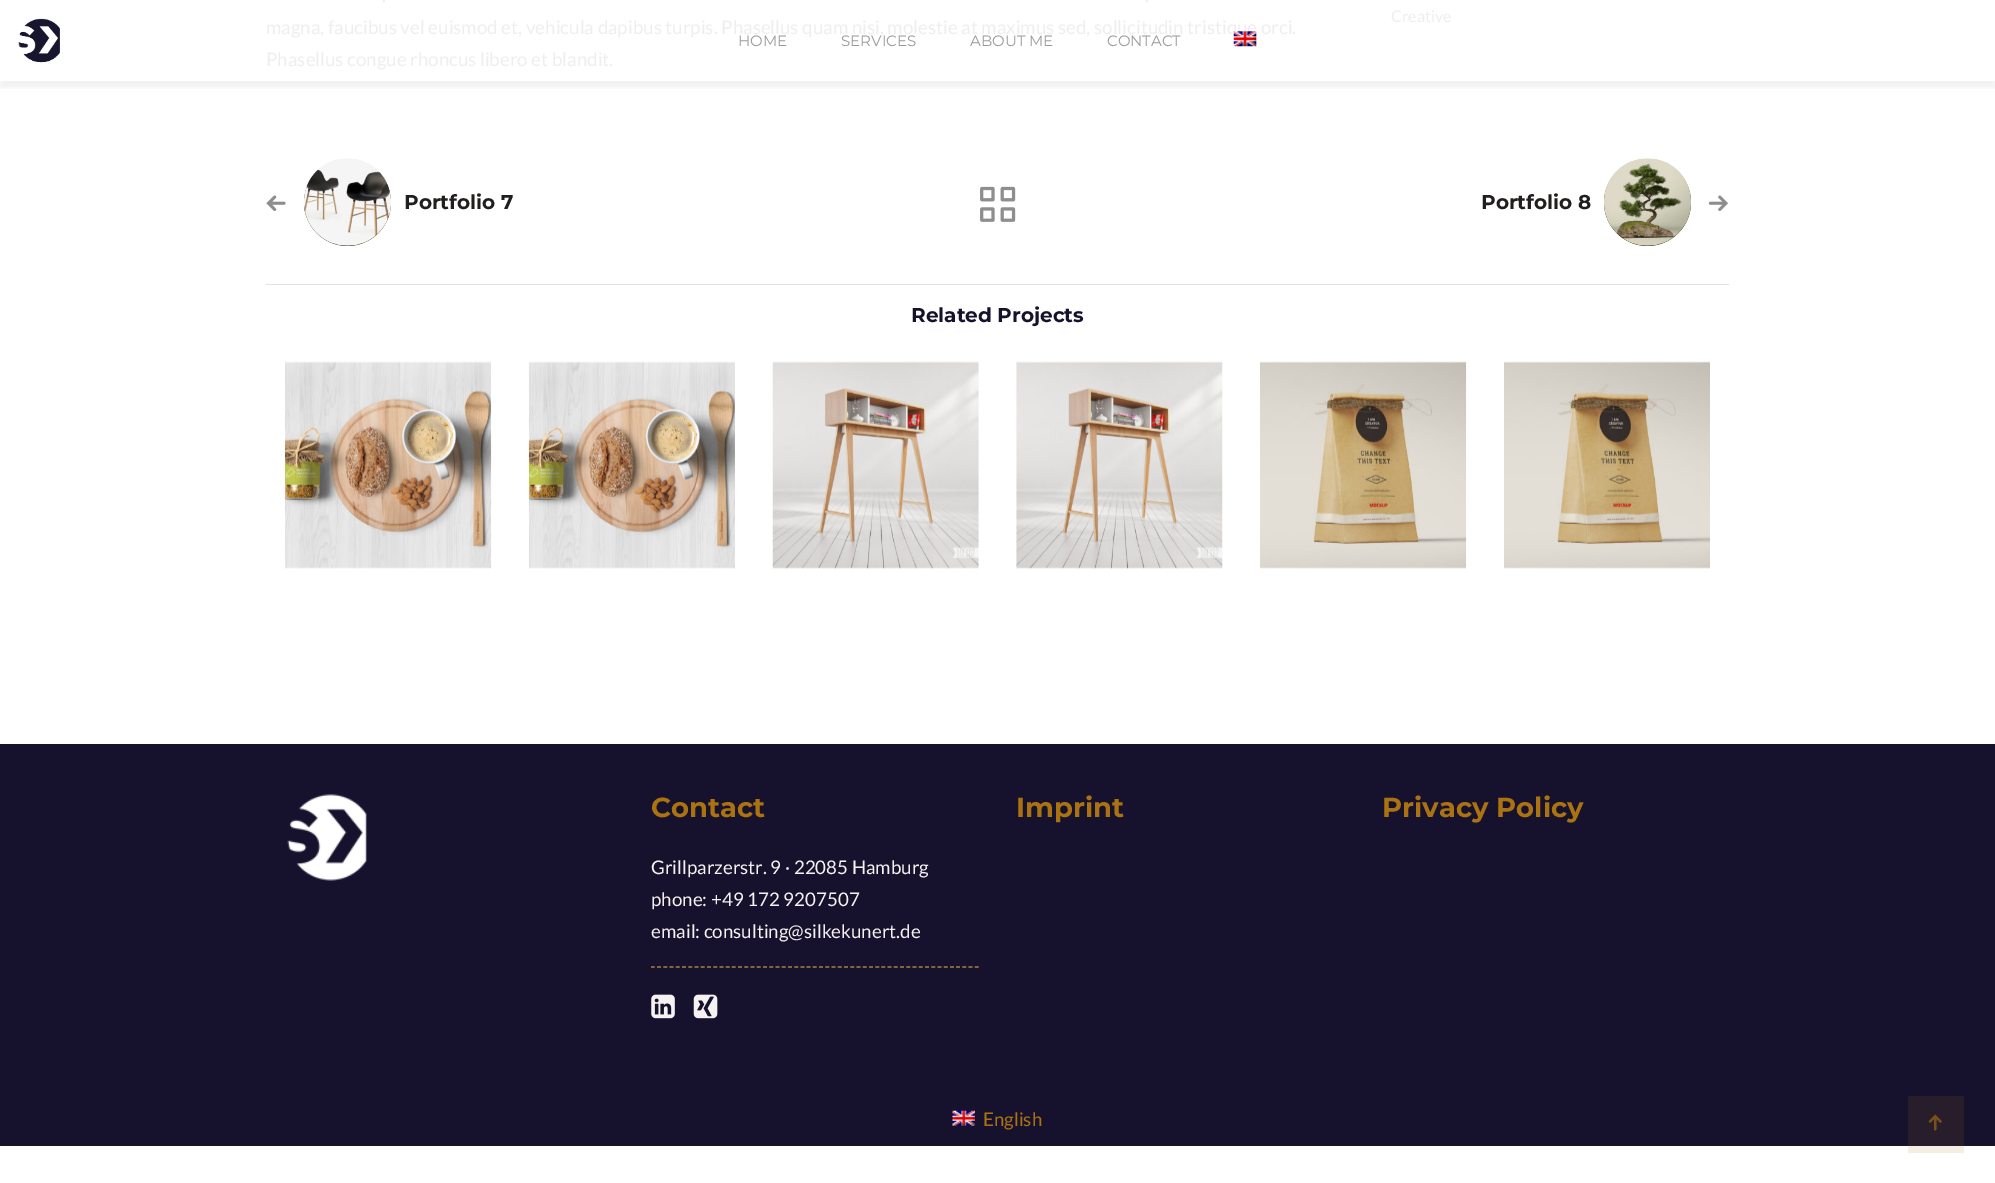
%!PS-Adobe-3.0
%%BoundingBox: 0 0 1995 1183
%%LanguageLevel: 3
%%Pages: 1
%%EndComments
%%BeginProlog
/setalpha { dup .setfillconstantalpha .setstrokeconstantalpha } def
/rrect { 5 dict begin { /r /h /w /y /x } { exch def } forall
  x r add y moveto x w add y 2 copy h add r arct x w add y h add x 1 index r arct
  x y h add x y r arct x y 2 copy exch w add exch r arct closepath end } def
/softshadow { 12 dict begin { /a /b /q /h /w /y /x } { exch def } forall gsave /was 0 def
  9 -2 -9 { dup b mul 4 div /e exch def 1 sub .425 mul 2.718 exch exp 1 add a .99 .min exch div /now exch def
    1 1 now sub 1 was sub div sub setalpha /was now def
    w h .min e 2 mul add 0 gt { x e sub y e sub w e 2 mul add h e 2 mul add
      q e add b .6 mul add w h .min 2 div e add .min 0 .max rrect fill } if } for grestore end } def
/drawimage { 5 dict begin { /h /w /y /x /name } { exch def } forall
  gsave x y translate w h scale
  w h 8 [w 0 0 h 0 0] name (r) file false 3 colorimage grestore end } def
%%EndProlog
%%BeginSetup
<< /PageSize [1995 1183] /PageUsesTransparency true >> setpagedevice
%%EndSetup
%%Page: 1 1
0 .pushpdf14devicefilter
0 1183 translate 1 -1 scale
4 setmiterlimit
1 setgray
0 0 1995 1183 rectfill
0.961 0.933 0.886 setrgbcolor
1908 1146 56 7 rectfill
(images/1.raw) 266 195 20 16 drawimage
0.2 setgray
newpath 347.5 202.5 43.5 0 360 arc closepath fill
(images/2.raw) 304 158 87 88 drawimage
(images/3.raw) 980 186 36 36 drawimage
newpath 1647.5 202.5 43.5 0 360 arc closepath fill
(images/4.raw) 1604 158 87 88 drawimage
(images/5.raw) 1708 195 20 16 drawimage
0.886 setgray
266 284 1463 1 rectfill
(images/6.raw) 285 361 207 208 drawimage
(images/7.raw) 528 361 207 208 drawimage
(images/8.raw) 772 361 207 208 drawimage
(images/9.raw) 1016 361 207 208 drawimage
(images/10.raw) 1260 361 207 208 drawimage
(images/11.raw) 1504 361 206 208 drawimage
gsave
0 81 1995 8 rectclip
0.102 setgray
0 6 1995 82 0 3 0.05 softshadow
grestore
(images/12.raw) 18 18 42 45 drawimage
0.086 0.067 0.176 setrgbcolor
0 744 1995 402 rectfill
(images/14.raw) 287 794 80 87 drawimage
0.667 0.514 0.243 setrgbcolor
1.2 setlinewidth
[3.75 2.48] 0 setdash
newpath 651 967 moveto 979 967 lineto stroke
(images/15.raw) 651 994 24 25 drawimage
(images/16.raw) 693 994 25 25 drawimage
0.157 0.114 0.165 setrgbcolor
1908 1096 56 50 rectfill
(images/17.raw) 952 1110 23 16 drawimage
(images/18.raw) 1928 1114 14 17 drawimage
/Lato-Regular [18.75 0 0 -18.75 0 0] selectfont
0.933 setgray
382 2 moveto (.) show
1145 2 moveto (.) show
266 34 moveto (magna, faucibus vel euismod et, vehicula dapibus turpis. Phasellus quam nisi, molestie at maximus sed, sollicitudin tristique orci.) show
266 66 moveto (Phasellus congue rhoncus libero et blandit.) show
/Lato-Regular [16 0 0 -16 0 0] selectfont
1391 22 moveto (Creative) show
/Montserrat-Bold [20 0 0 -20 0 0] selectfont
0.129 0.122 0.118 setrgbcolor
404 209 moveto (Portfolio 7) show
1481 209 moveto (Portfolio 8) show
0.086 0.067 0.176 setrgbcolor
911 322 moveto (Related Projects) show
/Montserrat-Regular [15 0 0 -15 0 0] selectfont
0.6 setgray
738 46 moveto (HOME) show
841 46 moveto (SERVICES) show
970 46 moveto (ABOUT ME) show
1107 46 moveto (CONTACT) show
(images/13.raw) 1233 31 24 16 drawimage
/Montserrat-Bold [27.5 0 0 -27.5 0 0] selectfont
0.671 0.447 0.067 setrgbcolor
651 817 moveto (Contact) show
/Lato-Regular [18.75 0 0 -18.75 0 0] selectfont
0.969 0.949 0.949 setrgbcolor
651 874 moveto (Grillparzerstr. 9 · 22085 Hamburg) show
651 906 moveto (phone: +49 172 9207507) show
651 938 moveto (email: consulting@silkekunert.de) show
/Montserrat-Bold [27.5 0 0 -27.5 0 0] selectfont
0.671 0.447 0.067 setrgbcolor
1016 817 moveto (Imprint) show
1382 817 moveto (Privacy Policy) show
/Lato-Regular [18.75 0 0 -18.75 0 0] selectfont
983 1126 moveto (English) show
.poppdf14devicefilter showpage
%%EOF
